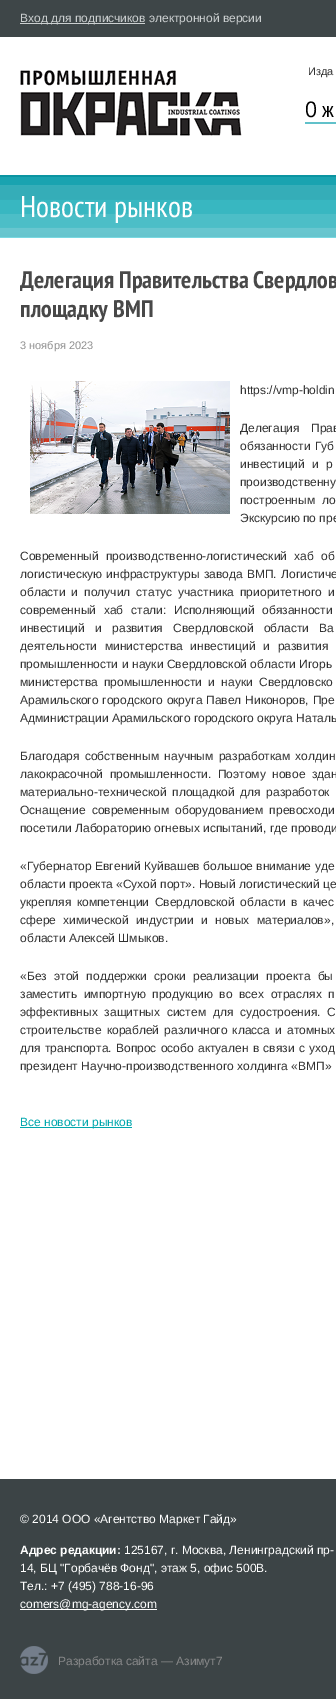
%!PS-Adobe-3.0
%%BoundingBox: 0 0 336 1699
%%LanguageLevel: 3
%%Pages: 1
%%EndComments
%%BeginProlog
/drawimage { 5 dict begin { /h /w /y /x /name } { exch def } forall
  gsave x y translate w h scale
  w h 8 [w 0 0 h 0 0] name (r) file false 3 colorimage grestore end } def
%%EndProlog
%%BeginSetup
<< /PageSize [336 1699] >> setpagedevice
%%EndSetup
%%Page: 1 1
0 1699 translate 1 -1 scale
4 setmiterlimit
1 setgray
0 0 336 1699 rectfill
0.243 0.275 0.282 setrgbcolor
0 0 336 37 rectfill
0.796 0.812 0.816 setrgbcolor
20 23 125 1 rectfill
(images/1.raw) 20 70 222 66 drawimage
0.38 0.757 0.792 setrgbcolor
305 122 31 2 rectfill
0.475 0.847 0.882 setrgbcolor
0 237 336 1 rectfill
(images/2.raw) 0 175 336 62 drawimage
(images/3.raw) 30 381 200 133 drawimage
0 0.655 0.678 setrgbcolor
20 1127 112 1 rectfill
0.235 0.267 0.275 setrgbcolor
0 1479 336 220 rectfill
1 setgray
20 1609 137 1 rectfill
(images/4.raw) 20 1646 28 28 drawimage
/LiberationSans-Regular [12 0 0 -12 0 0] selectfont
0.796 0.812 0.816 setrgbcolor
20 22 moveto (Вход для подписчиков электронной версии) show
/LiberationSans-Regular [11 0 0 -11 0 0] selectfont
0.196 setgray
308 75 moveto (Изда) show
/PTSansNarrow-Regular [22 0 0 -22 0 0] selectfont
0 setgray
305 117 moveto (О ж) show
/PTSansNarrow-Regular [30 0 0 -30 0 0] selectfont
1 setgray
20 217 moveto (Новости рынков) show
/PTSansNarrow-Bold [24 0 0 -24 0 0] selectfont
0.282 setgray
20 288 moveto (Делегация Правительства Свердлов) show
20 317 moveto (площадку ВМП) show
/LiberationSans-Regular [11 0 0 -11 0 0] selectfont
0.561 setgray
20 349 moveto (3 ноября 2023) show
/LiberationSans-Regular [12 0 0 -12 0 0] selectfont
0.196 setgray
240 394 moveto (https://vmp-holdin) show
240 432 moveto 8 0 32 (Делегация Прав) widthshow
240 450 moveto 1 0 32 (обязанности Губ) widthshow
240 468 moveto 4 0 32 (инвестиций и р) widthshow
240 486 moveto 1 0 32 (производственну) widthshow
240 504 moveto 3.5 0 32 (построенным ло) widthshow
240 522 moveto (Экскурсию по пре) show
20 560 moveto 4 0 32 (Современный производственно-логистический хаб об) widthshow
20 578 moveto 1 0 32 (логистическую инфраструктуры завода ВМП. Логистиче) widthshow
20 596 moveto 2.75 0 32 (области и получил статус участника приоритетного и) widthshow
20 614 moveto 4.5 0 32 (современный хаб стали: Исполняющий обязанности) widthshow
20 632 moveto 7 0 32 (инвестиций и развития Свердловской области Ва) widthshow
20 650 moveto 4.5 0 32 (деятельности министерства инвестиций и развития) widthshow
20 668 moveto 0.25 0 32 (промышленности и науки Свердловской области Игорь) widthshow
20 686 moveto 3 0 32 (министерства промышленности и науки Свердловско) widthshow
20 704 moveto 0.5 0 32 (Арамильского городского округа Павел Никоноров, Пре) widthshow
20 722 moveto (Администрации Арамильского городского округа Наталь) show
20 760 moveto 2 0 32 (Благодаря собственным научным разработкам холдин) widthshow
20 778 moveto 3.25 0 32 (лакокрасочной промышленности. Поэтому новое здан) widthshow
20 796 moveto 2.25 0 32 (материально-технической площадкой для разработок) widthshow
20 814 moveto 3 0 32 (Оснащение современным оборудованием превосходи) widthshow
20 832 moveto (посетили Лабораторию огневых испытаний, где проводи) show
20 870 moveto 0.25 0 32 («Губернатор Евгений Куйвашев большое внимание уде) widthshow
20 888 moveto (области проекта «Сухой порт». Новый логистический це) show
20 906 moveto 2.25 0 32 (укрепляя компетенции Свердловской области в качес) widthshow
20 924 moveto 4 0 32 (сфере химической индустрии и новых материалов»,) widthshow
20 942 moveto (области Алексей Шмыков.) show
20 980 moveto 4 0 32 («Без этой поддержки сроки реализации проекта бы) widthshow
20 998 moveto 3.25 0 32 (заместить импортную продукцию во всех отраслях п) widthshow
20 1016 moveto 3.5 0 32 (эффективных защитных систем для судостроения. С) widthshow
20 1034 moveto 1.75 0 32 (строительстве кораблей различного класса и атомных) widthshow
20 1052 moveto 1 0 32 (для транспорта. Вопрос особо актуален в связи с уход) widthshow
20 1070 moveto (президент Научно-производственного холдинга «ВМП») show
0 0.655 0.678 setrgbcolor
20 1126 moveto (Все новости рынков) show
1 setgray
20 1523 moveto (© 2014 ООО «Агентство Маркет Гайд») show
/LiberationSans-Bold [12 0 0 -12 0 0] selectfont
20 1554 moveto (Адрес редакции:) show
/LiberationSans-Regular [12 0 0 -12 0 0] selectfont
124 1554 moveto (125167, г. Москва, Ленинградский пр-) show
20 1572 moveto (14, БЦ "Горбачёв Фонд", этаж 5, офис 500В.) show
20 1590 moveto (Тел.: +7 \(495\) 788-16-96) show
20 1608 moveto (comers@mg-agency.com) show
0.529 0.533 0.537 setrgbcolor
58 1665 moveto (Разработка сайта — Азимут7) show
showpage
%%EOF
